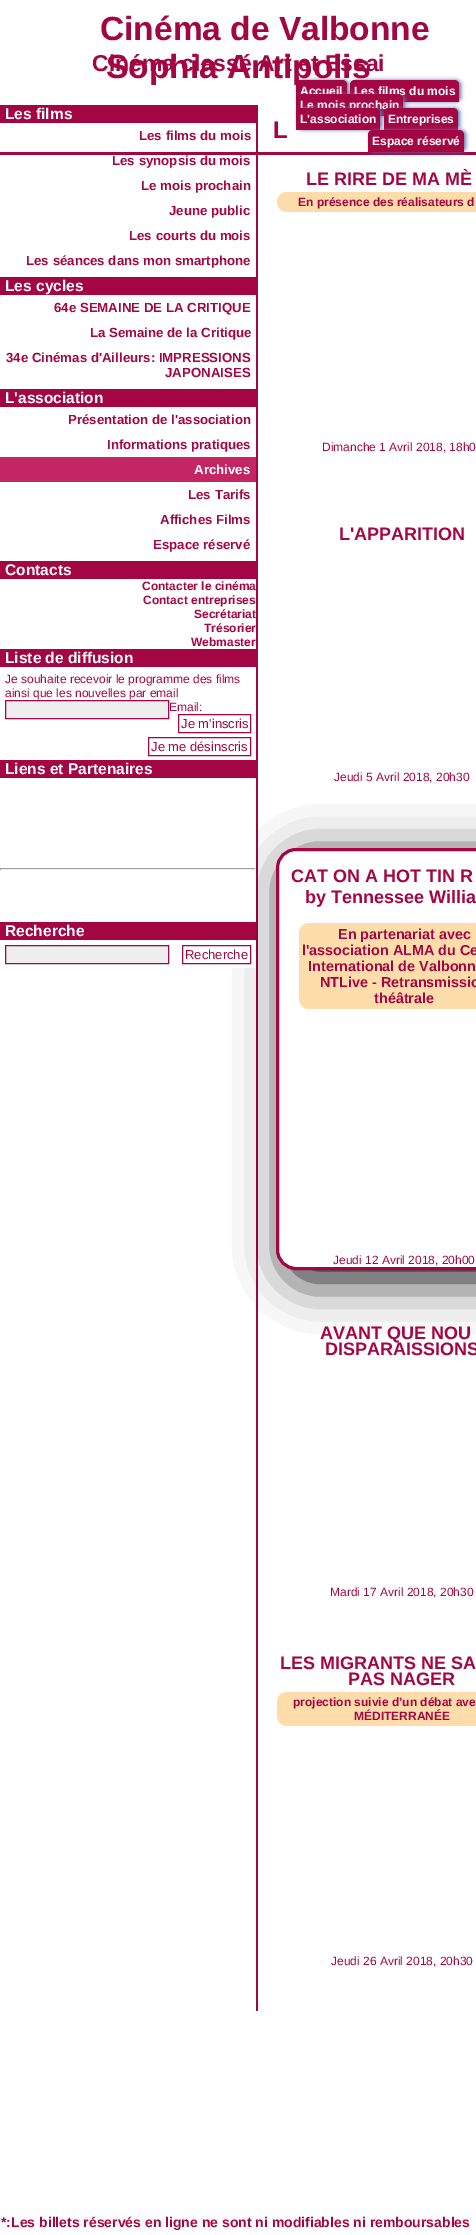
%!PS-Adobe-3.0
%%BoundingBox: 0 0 476 2235
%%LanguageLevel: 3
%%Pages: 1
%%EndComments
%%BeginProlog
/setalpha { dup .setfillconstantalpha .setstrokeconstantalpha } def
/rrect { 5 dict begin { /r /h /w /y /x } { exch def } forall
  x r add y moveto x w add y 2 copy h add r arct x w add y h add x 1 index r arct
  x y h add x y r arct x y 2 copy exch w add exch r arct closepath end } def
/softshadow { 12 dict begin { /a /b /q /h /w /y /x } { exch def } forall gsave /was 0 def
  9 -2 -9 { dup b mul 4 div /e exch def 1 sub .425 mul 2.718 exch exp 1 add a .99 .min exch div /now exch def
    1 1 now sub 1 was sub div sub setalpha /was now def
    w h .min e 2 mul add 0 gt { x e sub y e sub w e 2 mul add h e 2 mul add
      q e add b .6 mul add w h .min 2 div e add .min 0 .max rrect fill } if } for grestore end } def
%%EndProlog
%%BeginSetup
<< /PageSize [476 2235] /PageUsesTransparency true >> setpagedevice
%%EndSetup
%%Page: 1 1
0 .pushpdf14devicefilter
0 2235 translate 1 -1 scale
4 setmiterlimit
1 setgray
0 0 476 2235 rectfill
0.639 0.024 0.259 setrgbcolor
256 105 2 1906 rectfill
0 152 476 3 rectfill
0.388 0.455 0.671 setrgbcolor
298 80 51 22 5 2 1 softshadow
0.639 0.024 0.259 setrgbcolor
newpath 301 80 moveto 342 80 lineto 345 80 347 82 347 85 curveto 347 102 lineto 296 102 lineto 296 85 lineto 296 82 298 80 301 80 curveto closepath fill
0.388 0.455 0.671 setrgbcolor
352 80 109 22 5 2 1 softshadow
0.639 0.024 0.259 setrgbcolor
newpath 355 80 moveto 454 80 lineto 457 80 459 82 459 85 curveto 459 102 lineto 350 102 lineto 350 85 lineto 350 82 352 80 355 80 curveto closepath fill
0.388 0.455 0.671 setrgbcolor
298 94 107 22 5 2 1 softshadow
gsave
newpath 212 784 moveto 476 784 lineto 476 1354 lineto 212 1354 lineto closepath 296 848 moveto 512 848 lineto 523 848 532 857 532 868 curveto 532 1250 lineto 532 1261 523 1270 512 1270 curveto 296 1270 lineto 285 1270 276 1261 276 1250 curveto 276 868 lineto 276 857 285 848 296 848 curveto closepath eoclip newpath
0 setgray
288 860 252 418 18 25 1 softshadow
grestore
1 setgray
230 832 26 136 rectfill
0.639 0.024 0.259 setrgbcolor
0 105 256 18 rectfill
0 277 256 18 rectfill
0 389 256 18 rectfill
0.765 0.149 0.384 setrgbcolor
0 457 256 25 rectfill
0.639 0.024 0.259 setrgbcolor
0 561 256 18 rectfill
0 649 256 18 rectfill
0.933 setgray
newpath 5.5 700.5 moveto 168.5 700.5 lineto 168.5 718.5 lineto 5.5 718.5 lineto closepath gsave fill grestore
0.639 0.024 0.259 setrgbcolor
stroke
178.5 714.5 72 18 rectstroke
148.5 737.5 102 18 rectstroke
0 760 256 18 rectfill
0.624 setgray
0 868 256 1 rectfill
0.933 setgray
255 868 1 2 rectfill
0 869 256 1 rectfill
0.624 setgray
0 868 1 2 rectfill
0.639 0.024 0.259 setrgbcolor
0 922 256 18 rectfill
0.933 setgray
newpath 5.5 945.5 moveto 168.5 945.5 lineto 168.5 963.5 lineto 5.5 963.5 lineto closepath gsave fill grestore
0.639 0.024 0.259 setrgbcolor
stroke
182.5 945.5 68 18 rectstroke
1 0.867 0.667 setrgbcolor
277 192 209 20 10 rrect fill
0.639 0.024 0.259 setrgbcolor
3 setlinewidth
277.5 849.5 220 419 18.5 rrect stroke
1 0.867 0.667 setrgbcolor
299 923 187 86 10 rrect fill
277 1692 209 34 10 rrect fill
/LiberationSans-Bold [33.5 0 0 -33.5 0 0] selectfont
0.639 0.024 0.259 setrgbcolor
100 40 moveto (Cinéma de Valbonne) show
/LiberationSans-Bold [23 0 0 -23 0 0] selectfont
92 71 moveto (Cinéma classé Art et Essai) show
/LiberationSans-Bold [33.5 0 0 -33.5 0 0] selectfont
106 78 moveto (Sophia Antipolis) show
/LiberationSans-Bold [12 0 0 -12 0 0] selectfont
1 setgray
300 95 moveto (Accueil) show
354 95 moveto (Les films du mois) show
0.639 0.024 0.259 setrgbcolor
newpath 301 94 moveto 398 94 lineto 401 94 403 96 403 99 curveto 403 116 lineto 296 116 lineto 296 99 lineto 296 96 298 94 301 94 curveto closepath fill
1 setgray
300 109 moveto (Le mois prochain) show
0.388 0.455 0.671 setrgbcolor
298 108 84 22 5 2 1 softshadow
0.639 0.024 0.259 setrgbcolor
newpath 301 108 moveto 375 108 lineto 378 108 380 110 380 113 curveto 380 130 lineto 296 130 lineto 296 113 lineto 296 110 298 108 301 108 curveto closepath fill
1 setgray
300 123 moveto (L'association) show
0.388 0.455 0.671 setrgbcolor
386 108 74 22 5 2 1 softshadow
0.639 0.024 0.259 setrgbcolor
newpath 389 108 moveto 453 108 lineto 456 108 458 110 458 113 curveto 458 130 lineto 384 130 lineto 384 113 lineto 384 110 386 108 389 108 curveto closepath fill
1 setgray
388 123 moveto (Entreprises) show
0.388 0.455 0.671 setrgbcolor
370 130 96 22 5 2 1 softshadow
0.639 0.024 0.259 setrgbcolor
newpath 373 130 moveto 459 130 lineto 462 130 464 132 464 135 curveto 464 152 lineto 368 152 lineto 368 135 lineto 368 132 370 130 373 130 curveto closepath fill
1 setgray
372 145 moveto (Espace réservé) show
/LiberationSans-Bold [15.5 0 0 -15.5 0 0] selectfont
5 119 moveto (Les films) show
/LiberationSans-Bold [13.25 0 0 -13.25 0 0] selectfont
0.639 0.024 0.259 setrgbcolor
139 140 moveto (Les films du mois) show
112 165 moveto (Les synopsis du mois) show
141 190 moveto (Le mois prochain) show
169 215 moveto (Jeune public) show
129 240 moveto (Les courts du mois) show
26 265 moveto (Les séances dans mon smartphone) show
/LiberationSans-Bold [15.5 0 0 -15.5 0 0] selectfont
1 setgray
5 291 moveto (Les cycles) show
/LiberationSans-Bold [13.25 0 0 -13.25 0 0] selectfont
0.639 0.024 0.259 setrgbcolor
54 312 moveto (64e SEMAINE DE LA CRITIQUE) show
90 337 moveto (La Semaine de la Critique) show
6 362 moveto (34e Cinémas d'Ailleurs: IMPRESSIONS) show
165 377 moveto (JAPONAISES) show
/LiberationSans-Bold [15.5 0 0 -15.5 0 0] selectfont
1 setgray
5 403 moveto (L'association) show
/LiberationSans-Bold [13.25 0 0 -13.25 0 0] selectfont
0.639 0.024 0.259 setrgbcolor
68 424 moveto (Présentation de l'association) show
107 449 moveto (Informations pratiques) show
1 setgray
194 474 moveto (Archives) show
0.639 0.024 0.259 setrgbcolor
188 499 moveto (Les Tarifs) show
160 524 moveto (Affiches Films) show
153 549 moveto (Espace réservé) show
/LiberationSans-Bold [15.5 0 0 -15.5 0 0] selectfont
1 setgray
5 575 moveto (Contacts) show
/LiberationSans-Bold [12 0 0 -12 0 0] selectfont
0.639 0.024 0.259 setrgbcolor
142 590 moveto (Contacter le cinéma) show
143 604 moveto (Contact entreprises) show
194 618 moveto (Secrétariat) show
204 632 moveto (Trésorier) show
191 646 moveto (Webmaster) show
/LiberationSans-Bold [15.5 0 0 -15.5 0 0] selectfont
1 setgray
5 663 moveto (Liste de diffusion) show
/LiberationSans-Regular [12 0 0 -12 0 0] selectfont
0.639 0.024 0.259 setrgbcolor
5 683 moveto (Je souhaite recevoir le programme des films) show
5 697 moveto (ainsi que les nouvelles par email) show
169 711 moveto (Email:) show
/LiberationSans-Regular [13 0 0 -13 0 0] selectfont
181 728 moveto (Je m'inscris) show
151 751 moveto (Je me désinscris) show
/LiberationSans-Bold [15.5 0 0 -15.5 0 0] selectfont
1 setgray
5 774 moveto (Liens et Partenaires) show
5 936 moveto (Recherche) show
/LiberationSans-Regular [13 0 0 -13 0 0] selectfont
0.639 0.024 0.259 setrgbcolor
185 959 moveto (Recherche) show
/LiberationSans-Bold [24 0 0 -24 0 0] selectfont
273 138 moveto (L) show
/LiberationSans-Bold [18 0 0 -18 0 0] selectfont
306 185 moveto (LE RIRE DE MA MÈ) show
/LiberationSans-Bold [12 0 0 -12 0 0] selectfont
298 206 moveto (En présence des réalisateurs d) show
/LiberationSans-Regular [12 0 0 -12 0 0] selectfont
322 451 moveto (Dimanche 1 Avril 2018, 18h0) show
/LiberationSans-Bold [18 0 0 -18 0 0] selectfont
339 540 moveto (L'APPARITION) show
/LiberationSans-Regular [12 0 0 -12 0 0] selectfont
334 781 moveto (Jeudi 5 Avril 2018, 20h30) show
/LiberationSans-Bold [18 0 0 -18 0 0] selectfont
291 882 moveto (CAT ON A HOT TIN R) show
305 903 moveto (by Tennessee Willia) show
/LiberationSans-Bold [14.4 0 0 -14.4 0 0] selectfont
338 939 moveto (En partenariat avec) show
302 955 moveto (l'association ALMA du Ce) show
308 971 moveto (International de Valbonn) show
320 987 moveto (NTLive - Retransmissio) show
374 1003 moveto (théâtrale) show
/LiberationSans-Regular [12 0 0 -12 0 0] selectfont
333 1264 moveto (Jeudi 12 Avril 2018, 20h00) show
/LiberationSans-Bold [18 0 0 -18 0 0] selectfont
320 1339 moveto (AVANT QUE NOU) show
325 1355 moveto (DISPARAISSIONS) show
/LiberationSans-Regular [12 0 0 -12 0 0] selectfont
330 1596 moveto (Mardi 17 Avril 2018, 20h30) show
/LiberationSans-Bold [18 0 0 -18 0 0] selectfont
280 1669 moveto (LES MIGRANTS NE SA) show
348 1685 moveto (PAS NAGER) show
/LiberationSans-Bold [12 0 0 -12 0 0] selectfont
293 1706 moveto (projection suivie d’un débat ave) show
354 1720 moveto (MÉDITERRANÉE) show
/LiberationSans-Regular [12 0 0 -12 0 0] selectfont
331 1965 moveto (Jeudi 26 Avril 2018, 20h30) show
/LiberationSans-Bold [14 0 0 -14 0 0] selectfont
1 2227 moveto (*:Les billets réservés en ligne ne sont ni modifiables ni remboursables) show
.poppdf14devicefilter showpage
%%EOF
